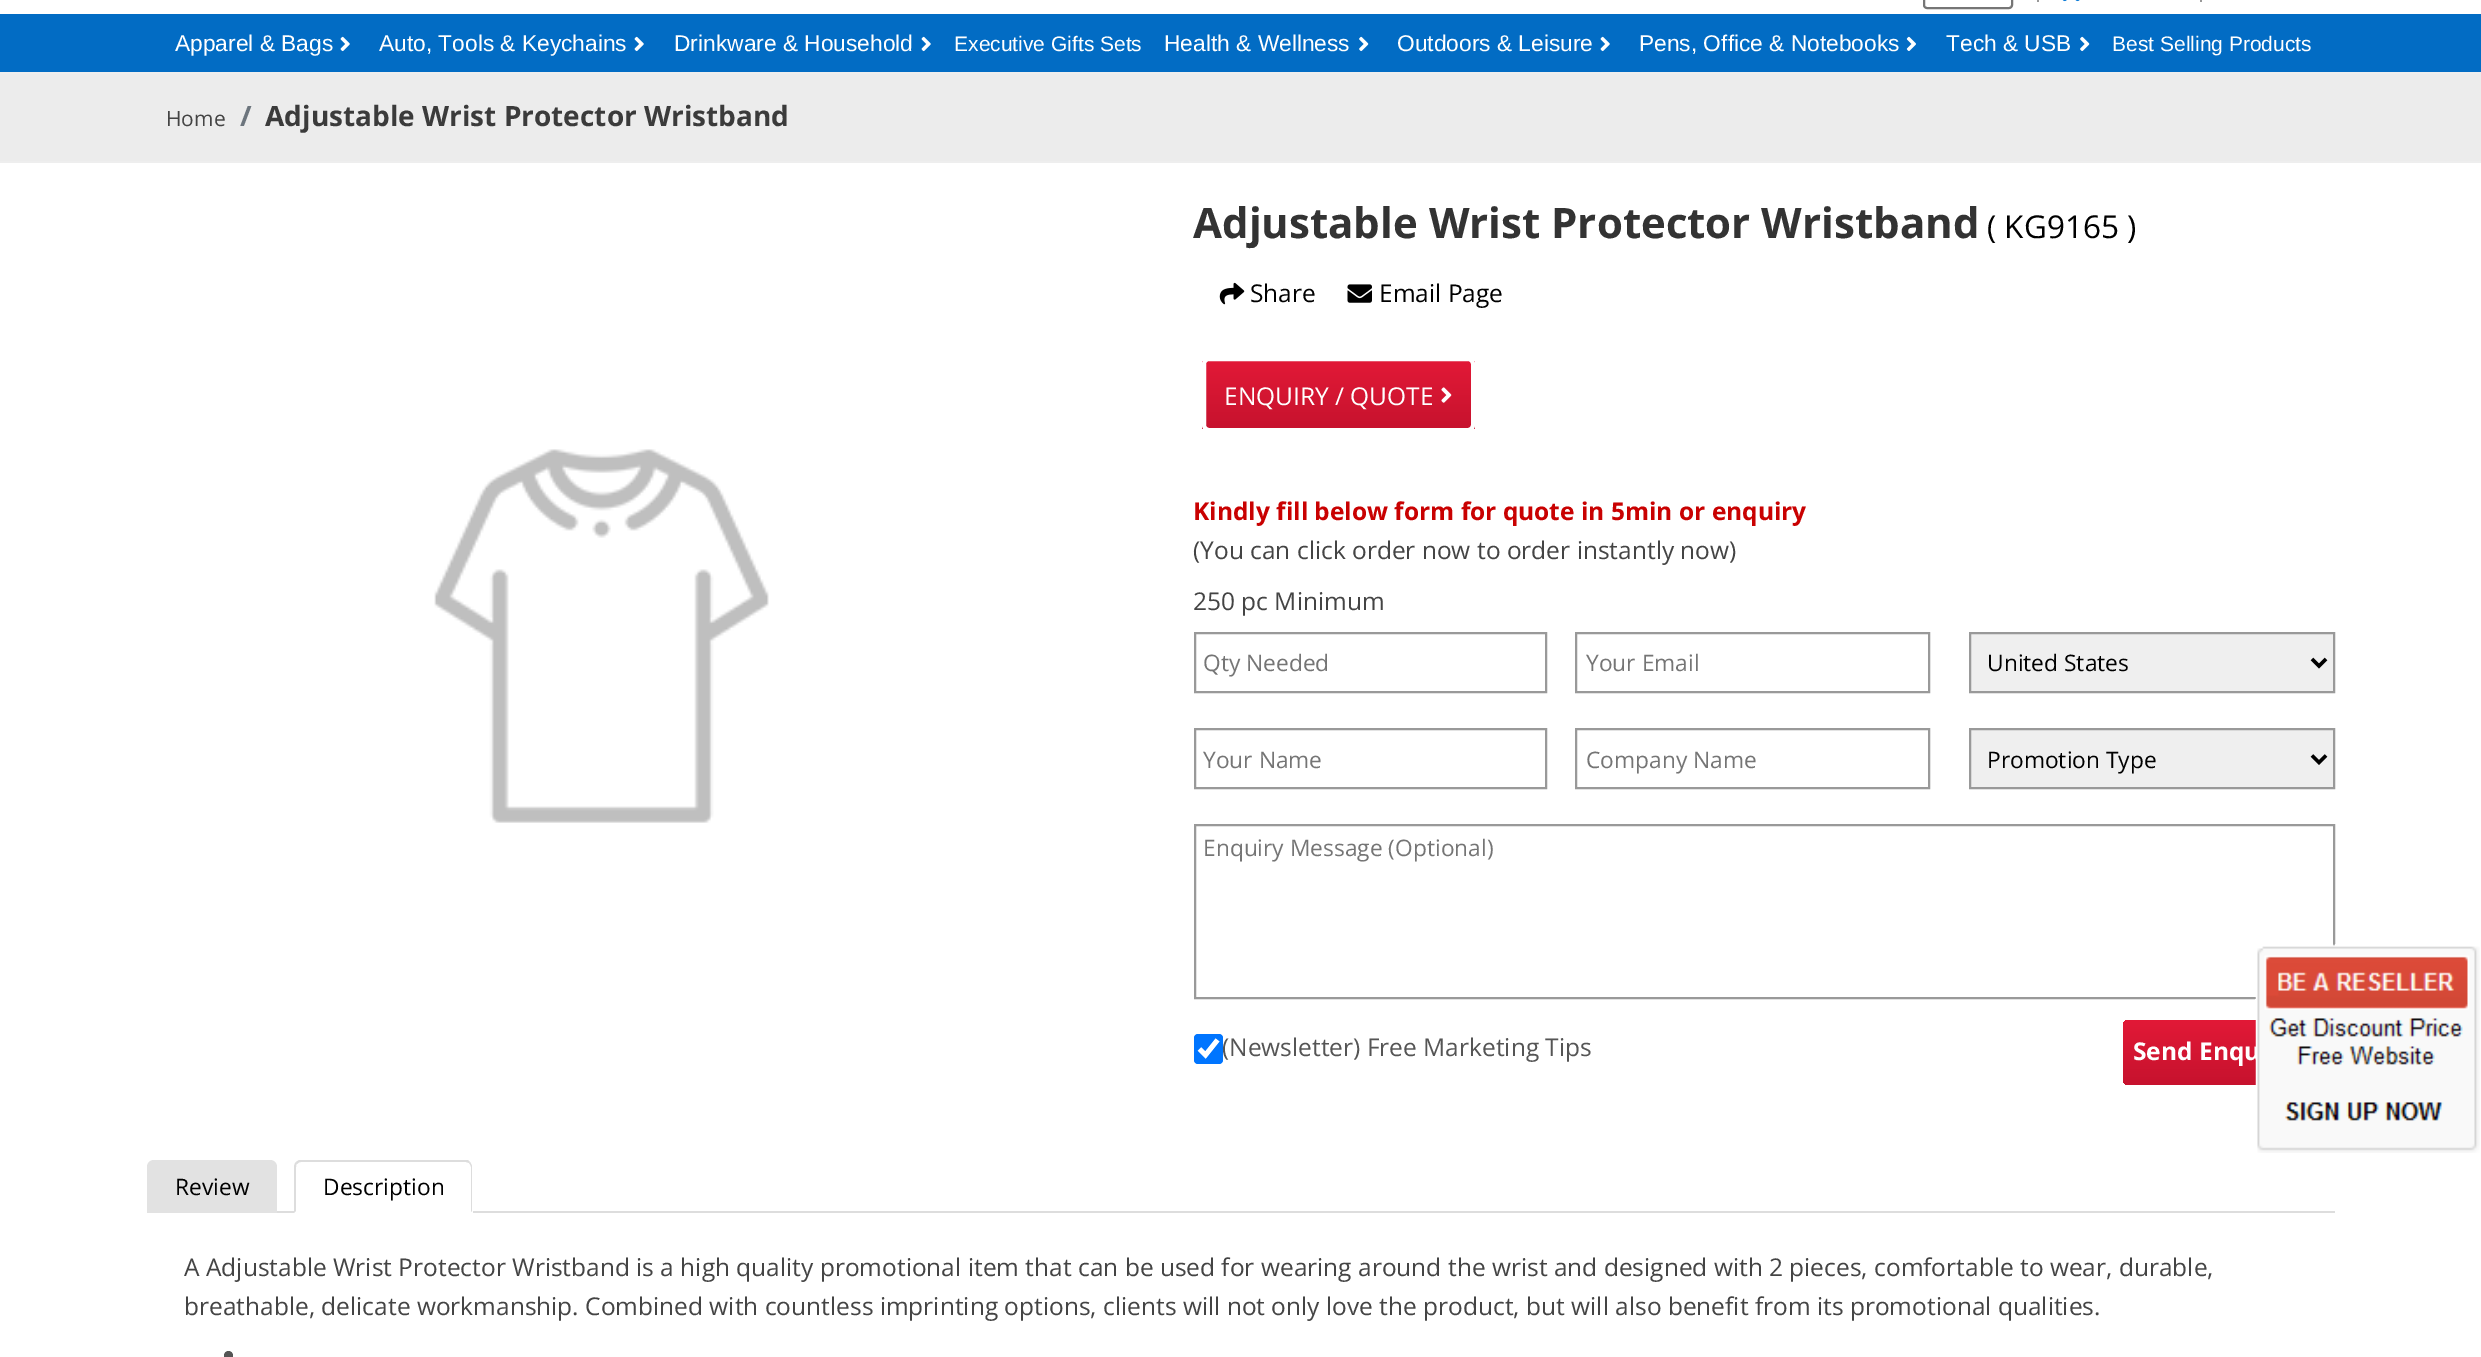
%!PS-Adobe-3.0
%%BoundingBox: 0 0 2481 1357
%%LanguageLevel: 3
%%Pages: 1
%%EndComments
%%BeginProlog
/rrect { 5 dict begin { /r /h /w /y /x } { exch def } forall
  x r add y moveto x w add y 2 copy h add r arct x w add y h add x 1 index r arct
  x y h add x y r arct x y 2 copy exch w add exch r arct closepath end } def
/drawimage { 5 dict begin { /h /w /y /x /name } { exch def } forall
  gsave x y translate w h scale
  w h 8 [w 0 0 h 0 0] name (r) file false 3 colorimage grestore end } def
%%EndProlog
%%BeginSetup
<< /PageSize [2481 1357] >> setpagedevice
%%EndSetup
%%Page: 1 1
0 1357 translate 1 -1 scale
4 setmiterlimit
1 setgray
0 0 2481 1357 rectfill
0.463 setgray
2 setlinewidth
1924 -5 88 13 3 rrect stroke
0.6 setgray
2037 0 2 2 rectfill
(images/1.raw) 2062 0 18 2 drawimage
2200 0 2 2 rectfill
0.008 0.424 0.769 setrgbcolor
0 14 2481 58 rectfill
0.933 setgray
0 72 2481 2 rectfill
(images/2.raw) 340 36 10 16 drawimage
(images/2.raw) 634 36 10 16 drawimage
(images/2.raw) 921 36 10 16 drawimage
(images/3.raw) 1359 36 10 16 drawimage
(images/2.raw) 1600 36 10 16 drawimage
(images/4.raw) 1906 36 10 15 drawimage
(images/3.raw) 2080 36 10 16 drawimage
0.925 setgray
0 74 2481 87 rectfill
0.933 setgray
0 161 2481 2 rectfill
(images/5.raw) 434 449 335 374 drawimage
(images/6.raw) 1219 282 26 23 drawimage
(images/7.raw) 1347 284 25 19 drawimage
gsave
1202 357 273 75 7 rrect clip newpath
gsave newpath 1202 361 moveto 1475 361 lineto 1475 429 lineto 1202 429 lineto closepath clip newpath
<< /ShadingType 2 /ColorSpace /DeviceRGB /Coords [1339 361 1339 429] /Extend [true true] /Function << /FunctionType 3 /Domain [0 1] /Functions [<< /FunctionType 2 /Domain [0 1] /C0 [0.886 0.098 0.216] /C1 [0.78 0.071 0.18] /N 1 >> << /FunctionType 2 /Domain [0 1] /C0 [0.78 0.071 0.18] /C1 [0.78 0.071 0.18] /N 1 >>] /Bounds [0.99] /Encode [0 1 0 1] >> >> shfill grestore
grestore
1 setgray
4 setlinewidth
1204 359 269 71 5 rrect stroke
(images/8.raw) 1441 387 11 16 drawimage
0.6 setgray
2 setlinewidth
1195 633 351 59 rectstroke
1576 633 353 59 rectstroke
0.937 setgray
newpath 1970 633 moveto 2334 633 lineto 2334 692 lineto 1970 692 lineto closepath gsave fill grestore
0.6 setgray
stroke
0 setgray
3.5 setlinewidth
newpath 2312 659 moveto 2319 666 lineto 2326 659 lineto stroke
0.6 setgray
2 setlinewidth
1195 729 351 59 rectstroke
1576 729 353 59 rectstroke
0.937 setgray
newpath 1970 729 moveto 2334 729 lineto 2334 788 lineto 1970 788 lineto closepath gsave fill grestore
0.6 setgray
stroke
0 setgray
3.5 setlinewidth
newpath 2312 755.5 moveto 2319 762.5 lineto 2326 755.5 lineto stroke
0.6 setgray
2 setlinewidth
1195 825 1139 173 rectstroke
0 0.459 1 setrgbcolor
1194 1034 29 30 4 rrect fill
1 setgray
4.8 setlinewidth
newpath 1199.5 1049 moveto 1205.5 1055 lineto 1217.5 1040 lineto stroke
gsave 2123 1020 212 65 5 rrect clip newpath
<< /ShadingType 2 /ColorSpace /DeviceRGB /Coords [2229 1020 2229 1085] /Extend [true true] /Function << /FunctionType 3 /Domain [0 1] /Functions [<< /FunctionType 2 /Domain [0 1] /C0 [0.886 0.098 0.216] /C1 [0.78 0.071 0.18] /N 1 >> << /FunctionType 2 /Domain [0 1] /C0 [0.78 0.071 0.18] /C1 [0.78 0.071 0.18] /N 1 >>] /Bounds [0.99] /Encode [0 1 0 1] >> >> shfill grestore
0.867 setgray
277 1211 2058 2 rectfill
0.886 setgray
newpath 154 1160 moveto 270 1160 lineto 274 1160 277 1163 277 1167 curveto 277 1213 lineto 147 1213 lineto 147 1167 lineto 147 1163 150 1160 154 1160 curveto closepath fill
1 setgray
newpath 301 1160 moveto 466 1160 lineto 470 1160 473 1163 473 1167 curveto 473 1213 lineto 294 1213 lineto 294 1167 lineto 294 1163 297 1160 301 1160 curveto closepath fill
0.867 setgray
newpath 301 1162 moveto 299 1162 298 1163 297 1164 curveto 296 1162 lineto 299 1160 lineto 468 1160 lineto 470 1162 lineto 469 1163 lineto 466 1162 lineto closepath fill
newpath 470 1162 moveto 471 1164 472 1165 472 1167 curveto 472 1212 lineto 471 1211 lineto 471 1167 lineto 471 1166 470 1164 469 1163 curveto closepath fill
newpath 294 1213 moveto 296 1211 lineto 296 1167 lineto 296 1166 296 1164 297 1164 curveto 296 1162 lineto 295 1163 294 1165 294 1167 curveto closepath fill
0.333 setgray
newpath 228.5 1355.5 4.5 0 360 arc closepath fill
/LiberationSans-Regular [22.75 0 0 -22.75 0 0] selectfont
1 setgray
175 51 moveto (Apparel & Bags) show
379 51 moveto (Auto, Tools & Keychains) show
674 51 moveto (Drinkware & Household) show
/LiberationSans-Regular [21 0 0 -21 0 0] selectfont
954 51 moveto (Executive Gifts Sets) show
/LiberationSans-Regular [22.75 0 0 -22.75 0 0] selectfont
1164 51 moveto (Health & Wellness) show
1397 51 moveto (Outdoors & Leisure) show
1639 51 moveto (Pens, Office & Notebooks) show
1946 51 moveto (Tech & USB) show
/LiberationSans-Regular [21 0 0 -21 0 0] selectfont
2112 51 moveto (Best Selling Products) show
/OpenSans-Regular [21 0 0 -21 0 0] selectfont
0.267 setgray
166 126 moveto (Home) show
/OpenSans-Bold [28 0 0 -28 0 0] selectfont
0.424 0.459 0.49 setrgbcolor
240 126 moveto (/) show
0.231 setgray
265 126 moveto (Adjustable Wrist Protector Wristband) show
/OpenSans-Bold [42 0 0 -42 0 0] selectfont
0.2 setgray
1193 238 moveto (Adjustable Wrist Protector Wristband) show
/OpenSans-Regular [31.5 0 0 -31.5 0 0] selectfont
0 setgray
1987 238 moveto (\( KG9165 \)) show
/OpenSans-Regular [24.5 0 0 -24.5 0 0] selectfont
1250 302 moveto (Share) show
1379 302 moveto (Email Page) show
1 setgray
1224 405 moveto (ENQUIRY / QUOTE) show
/OpenSans-Bold [24.5 0 0 -24.5 0 0] selectfont
0.788 0.004 0.004 setrgbcolor
1193 520 moveto (Kindly fill below form for quote in 5min or enquiry) show
/OpenSans-Regular [24.5 0 0 -24.5 0 0] selectfont
0.267 setgray
1193 559 moveto (\(You can click order now to order instantly now\)) show
1193 610 moveto (250 pc Minimum) show
/OpenSans-Regular [22.75 0 0 -22.75 0 0] selectfont
0.459 setgray
1203 671 moveto (Qty Needed) show
1586 671 moveto (Your Email) show
0 setgray
1987 671 moveto (United States) show
0.459 setgray
1203 768 moveto (Your Name) show
1586 768 moveto (Company Name) show
0 setgray
1987 768 moveto (Promotion Type) show
0.459 setgray
1203 856 moveto (Enquiry Message \(Optional\)) show
/OpenSans-Regular [24.5 0 0 -24.5 0 0] selectfont
0.333 setgray
1222 1056 moveto (\(Newsletter\) Free Marketing Tips) show
/OpenSans-Bold [24.5 0 0 -24.5 0 0] selectfont
1 setgray
2133 1060 moveto (Send Enqu) show
/OpenSans-Regular [22.75 0 0 -22.75 0 0] selectfont
0 setgray
175 1195 moveto (Review) show
323 1195 moveto (Description) show
/OpenSans-Regular [24.5 0 0 -24.5 0 0] selectfont
0.267 setgray
184 1276 moveto (A Adjustable Wrist Protector Wristband is a high quality promotional item that can be used for wearing around the wrist and designed with 2 pieces, comfortable to wear, durable,) show
184 1315 moveto (breathable, delicate workmanship. Combined with countless imprinting options, clients will not only love the product, but will also benefit from its promotional qualities.) show
(images/9.raw) 2255 944 225 209 drawimage
showpage
%%EOF
